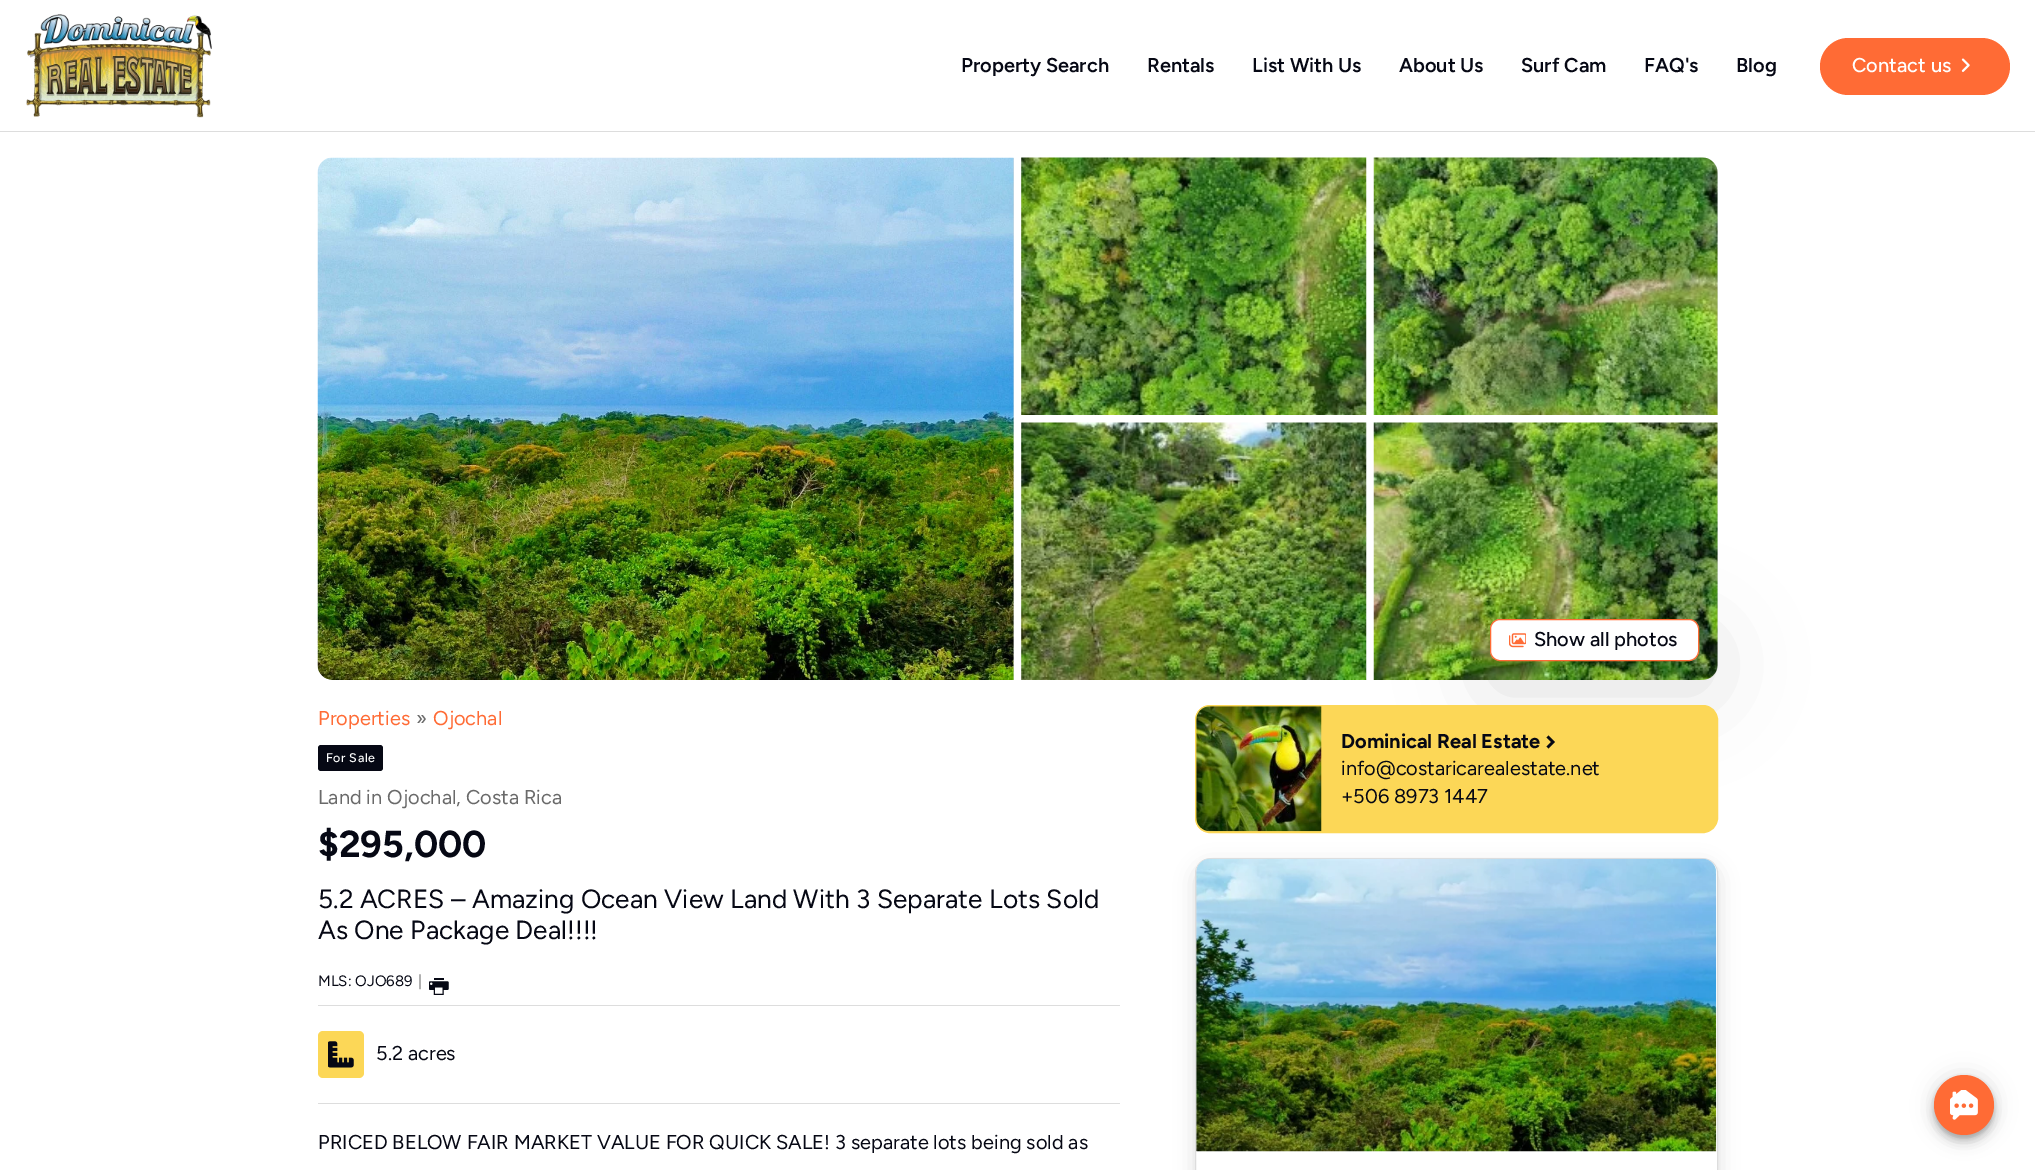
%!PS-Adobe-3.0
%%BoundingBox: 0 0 2035 1170
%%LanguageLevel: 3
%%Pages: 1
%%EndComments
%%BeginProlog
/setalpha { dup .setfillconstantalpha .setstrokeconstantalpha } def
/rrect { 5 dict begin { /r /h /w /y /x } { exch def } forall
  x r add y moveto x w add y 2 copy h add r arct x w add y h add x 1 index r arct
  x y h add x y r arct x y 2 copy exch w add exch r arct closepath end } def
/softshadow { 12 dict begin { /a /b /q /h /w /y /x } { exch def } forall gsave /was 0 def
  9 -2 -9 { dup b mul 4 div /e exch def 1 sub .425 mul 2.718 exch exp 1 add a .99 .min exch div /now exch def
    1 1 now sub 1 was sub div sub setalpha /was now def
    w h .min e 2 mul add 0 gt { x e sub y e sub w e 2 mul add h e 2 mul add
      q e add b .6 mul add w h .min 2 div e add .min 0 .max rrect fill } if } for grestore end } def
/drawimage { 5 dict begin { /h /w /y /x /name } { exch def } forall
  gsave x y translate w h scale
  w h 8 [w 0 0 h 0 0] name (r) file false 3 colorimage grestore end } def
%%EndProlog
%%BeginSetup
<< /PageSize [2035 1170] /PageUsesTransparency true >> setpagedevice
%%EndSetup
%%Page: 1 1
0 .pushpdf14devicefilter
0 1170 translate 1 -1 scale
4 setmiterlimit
1 setgray
0 0 2035 1170 rectfill
(images/1.raw) 26 14 186 104 drawimage
1 0.42 0.208 setrgbcolor
1820 38 190 57 28.5 rrect fill
(images/2.raw) 1961 58 9 14 drawimage
0.867 setgray
0 131 2035 1 rectfill
newpath 333 158 moveto 1014 158 lineto 1014 680 lineto 333 680 lineto 324.5 680 318 673.5 318 665 curveto 318 173 lineto 318 164.5 324.5 158 333 158 curveto closepath fill
(images/3.raw) 317 157 697 523 drawimage
(images/4.raw) 1021 157 346 258 drawimage
newpath 1374 158 moveto 1703 158 lineto 1711.5 158 1718 164.5 1718 173 curveto 1718 415 lineto 1374 415 lineto closepath fill
(images/5.raw) 1373 157 345 258 drawimage
(images/6.raw) 1021 422 346 258 drawimage
newpath 1374 423 moveto 1718 423 lineto 1718 665 lineto 1718 673.5 1711.5 680 1703 680 curveto 1374 680 lineto closepath fill
(images/7.raw) 1373 422 345 258 drawimage
0 setgray
1496 644 209 42 10 47 0.14 softshadow
1 setgray
1490.5 619.5 208 41 9.5 rrect gsave fill grestore
1 0.42 0.208 setrgbcolor
stroke
(images/8.raw) 1509 633 17 15 drawimage
0.024 0.031 0.078 setrgbcolor
318 745 65 26 3 rrect fill
(images/9.raw) 429 978 20 17 drawimage
0.867 setgray
318 1005 802 1 rectfill
318 1103 802 1 rectfill
0.988 0.843 0.341 setrgbcolor
318 1031 46 47 5 rrect fill
(images/10.raw) 328 1041 26 27 drawimage
1195.5 705.5 522 127 14.5 rrect gsave fill grestore
stroke
(images/11.raw) 1196 706 126 126 drawimage
0.024 0.031 0.078 setrgbcolor
2.8 setlinewidth
newpath 1547.5 736.5 moveto 1553 742 lineto 1547.5 747.5 lineto stroke
0 setgray
1195 865 523 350 15 10 0.14 softshadow
1 setgray
1195.5 858.5 522 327 14.5 rrect gsave fill grestore
0.867 setgray
1 setlinewidth
stroke
newpath 1210 859 moveto 1702 859 lineto 1709.5 859 1716 865.5 1716 873 curveto 1716 1151 lineto 1196 1151 lineto 1196 873 lineto 1196 865.5 1202.5 859 1210 859 curveto closepath fill
(images/12.raw) 1196 858 521 294 drawimage
0 setgray
1934 1076 60 60 30 11 0.12 softshadow
1934 1083 60 60 30 6 0.14 softshadow
1935 1080 58 58 29 3 0.2 softshadow
1 0.42 0.208 setrgbcolor
newpath 1964 1105 30 0 360 arc closepath fill
(images/13.raw) 1950 1090 28 30 drawimage
/Figtree-SemiBold [20 0 0 -20 0 0] selectfont
0.024 0.031 0.078 setrgbcolor
961 72 moveto (Property Search) show
1147 72 moveto (Rentals) show
1252 72 moveto (List With Us) show
1399 72 moveto (About Us) show
1521 72 moveto (Surf Cam) show
1644 72 moveto (FAQ's) show
1736 72 moveto (Blog) show
/Figtree-Medium [20 0 0 -20 0 0] selectfont
1 setgray
1852 72 moveto (Contact us) show
0.024 0.031 0.078 setrgbcolor
1534 646 moveto (Show all photos) show
/Figtree-Regular [20 0 0 -20 0 0] selectfont
1 0.42 0.208 setrgbcolor
318 725 moveto (Properties) show
0.416 setgray
416 725 moveto (») show
1 0.42 0.208 setrgbcolor
433 725 moveto (Ojochal) show
/Figtree-Medium [12.5 0 0 -12.5 0 0] selectfont
1 setgray
326 762 moveto 0.5 0 (For Sale) ashow
/Figtree-Regular [20 0 0 -20 0 0] selectfont
0.416 setgray
318 804 moveto (Land in Ojochal, Costa Rica) show
/Figtree-Bold [37.5 0 0 -37.5 0 0] selectfont
0.024 0.031 0.078 setrgbcolor
318 857 moveto ($295,000) show
/Figtree-Regular [26.25 0 0 -26.25 0 0] selectfont
318 908 moveto (5.2 ACRES – Amazing Ocean View Land With 3 Separate Lots Sold) show
318 939 moveto (As One Package Deal!!!!) show
/Figtree-Regular [15 0 0 -15 0 0] selectfont
318 986 moveto (MLS: OJO689) show
0.416 setgray
418 986 moveto (|) show
/Figtree-Regular [20 0 0 -20 0 0] selectfont
0.024 0.031 0.078 setrgbcolor
376 1060 moveto (5.2 acres) show
318 1149 moveto (PRICED BELOW FAIR MARKET VALUE FOR QUICK SALE! 3 separate lots being sold as) show
/Figtree-Bold [20 0 0 -20 0 0] selectfont
1341 748 moveto (Dominical Real Estate) show
/Figtree-Regular [20 0 0 -20 0 0] selectfont
1341 775 moveto (info@costaricarealestate.net) show
1341 803 moveto (+506 8973 1447) show
.poppdf14devicefilter showpage
%%EOF
